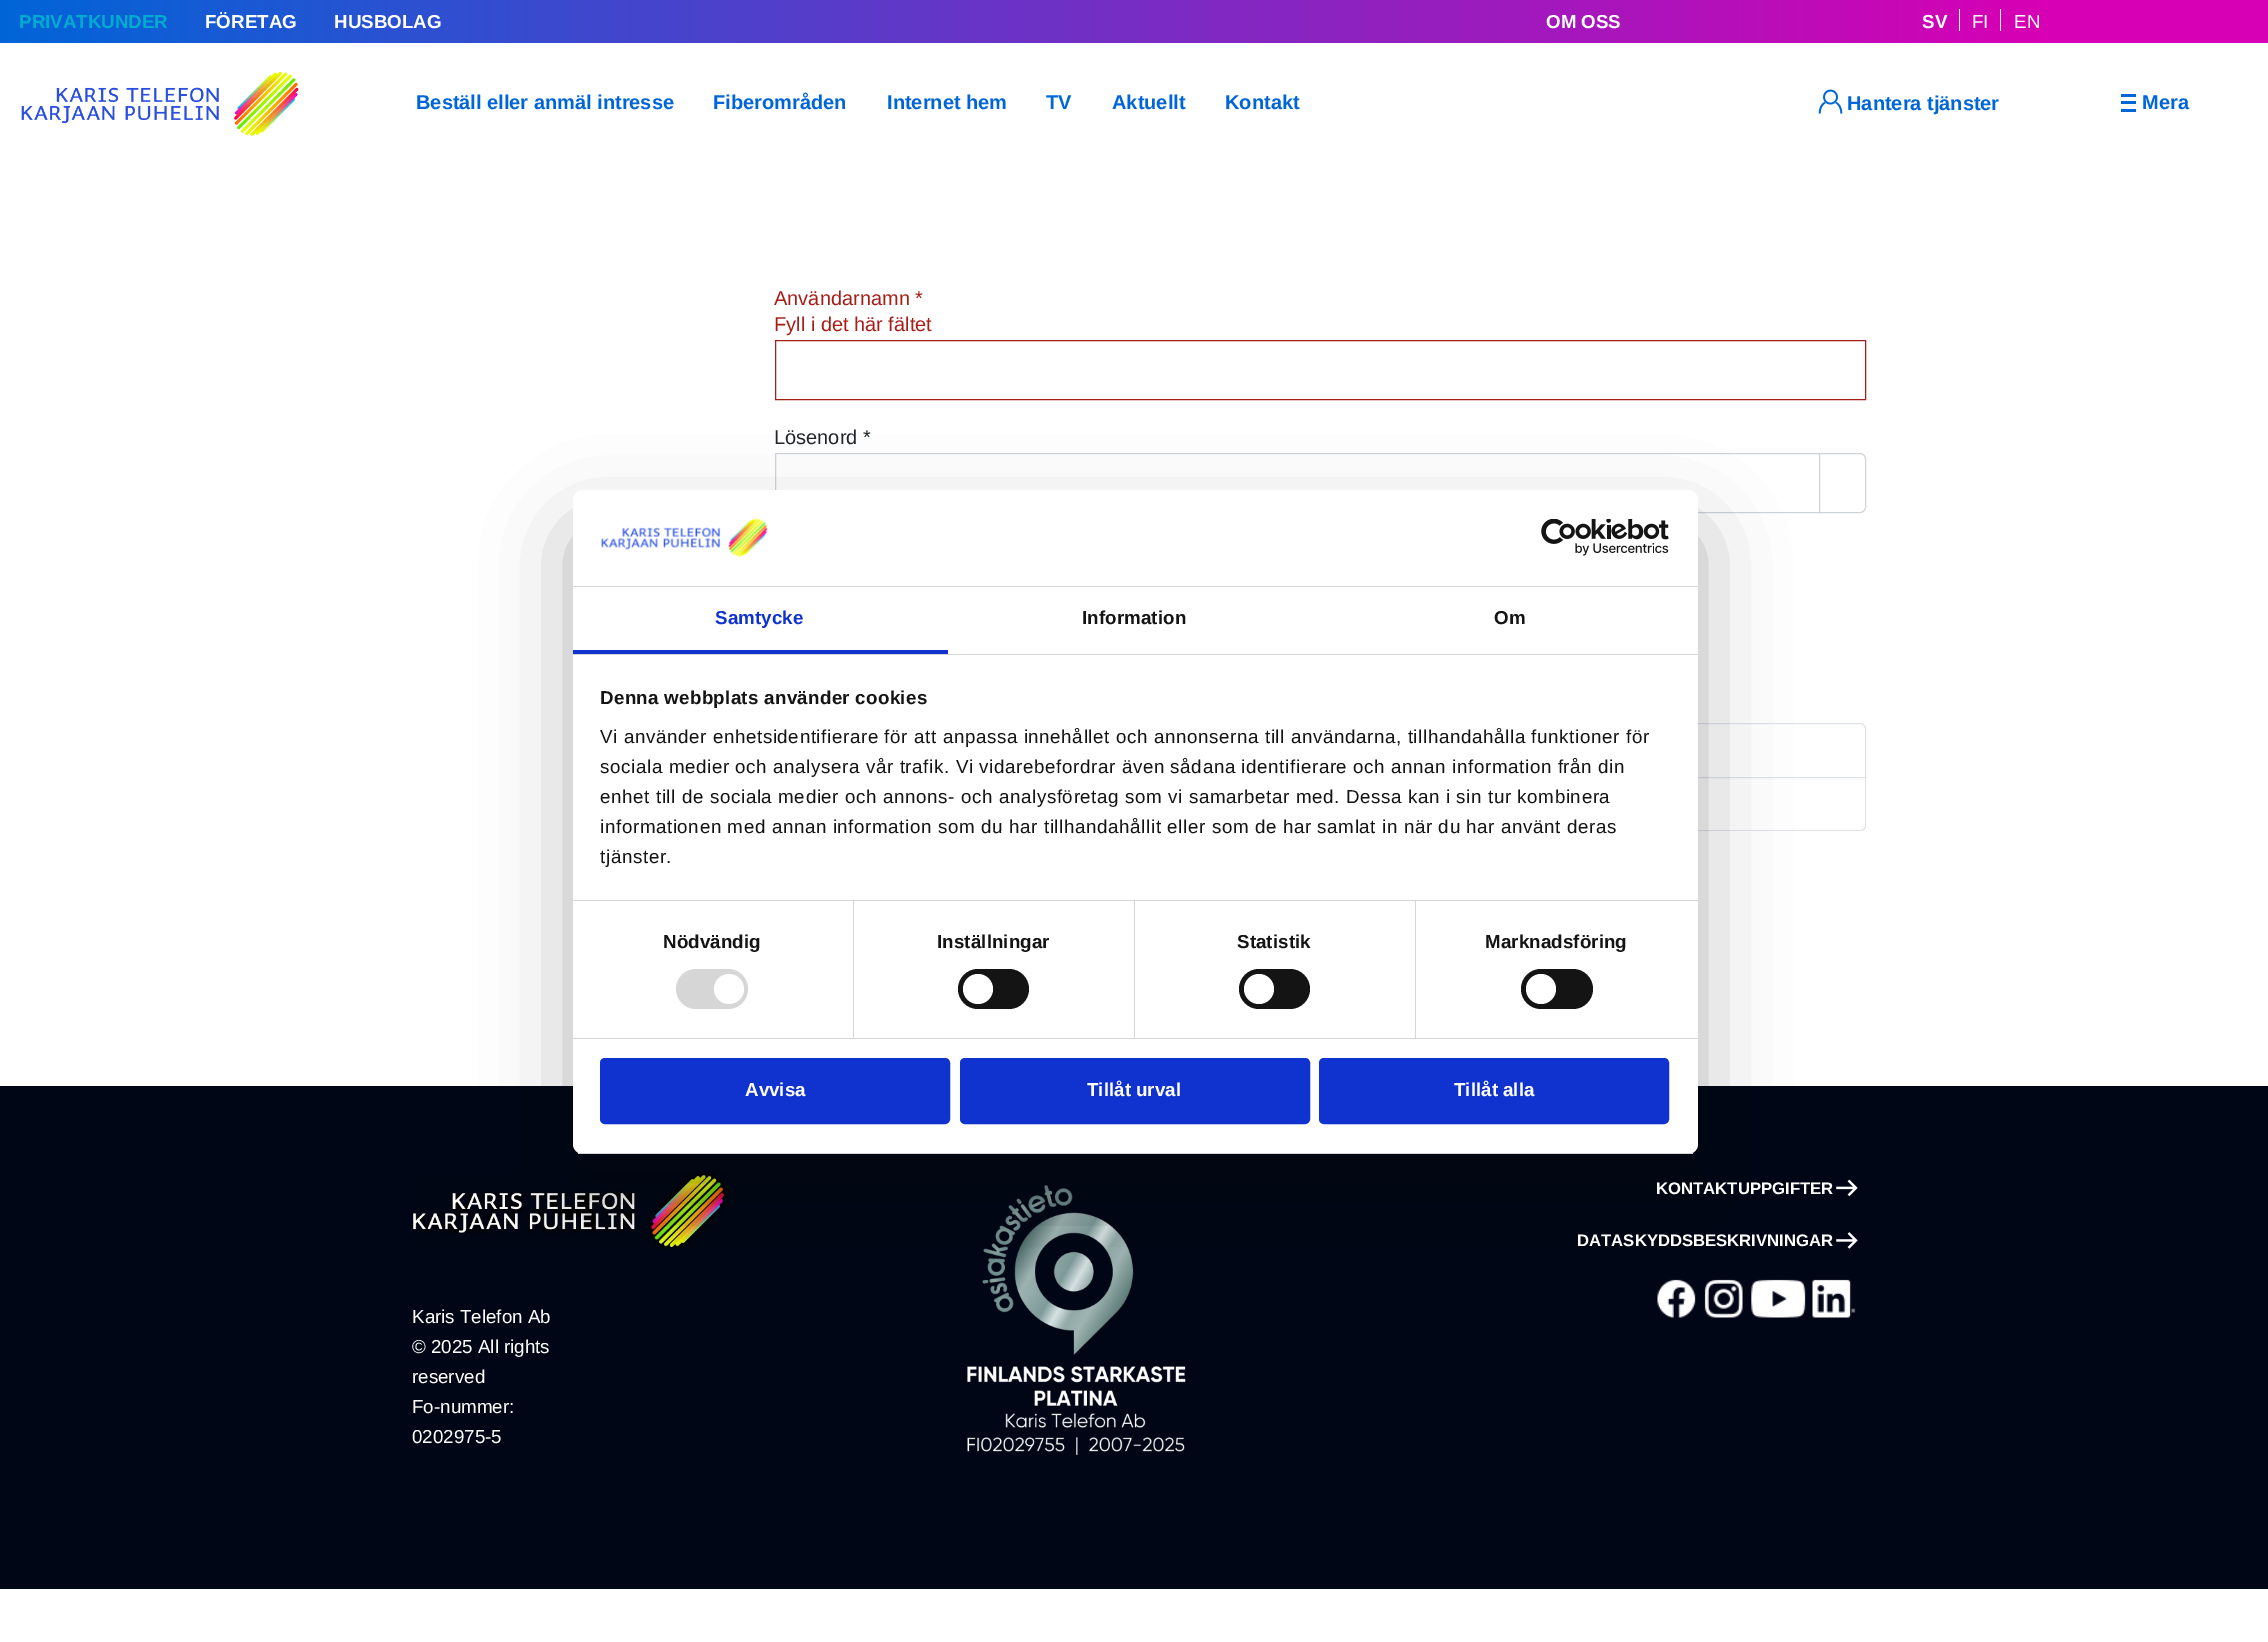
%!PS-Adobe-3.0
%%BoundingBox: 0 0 2268 1642
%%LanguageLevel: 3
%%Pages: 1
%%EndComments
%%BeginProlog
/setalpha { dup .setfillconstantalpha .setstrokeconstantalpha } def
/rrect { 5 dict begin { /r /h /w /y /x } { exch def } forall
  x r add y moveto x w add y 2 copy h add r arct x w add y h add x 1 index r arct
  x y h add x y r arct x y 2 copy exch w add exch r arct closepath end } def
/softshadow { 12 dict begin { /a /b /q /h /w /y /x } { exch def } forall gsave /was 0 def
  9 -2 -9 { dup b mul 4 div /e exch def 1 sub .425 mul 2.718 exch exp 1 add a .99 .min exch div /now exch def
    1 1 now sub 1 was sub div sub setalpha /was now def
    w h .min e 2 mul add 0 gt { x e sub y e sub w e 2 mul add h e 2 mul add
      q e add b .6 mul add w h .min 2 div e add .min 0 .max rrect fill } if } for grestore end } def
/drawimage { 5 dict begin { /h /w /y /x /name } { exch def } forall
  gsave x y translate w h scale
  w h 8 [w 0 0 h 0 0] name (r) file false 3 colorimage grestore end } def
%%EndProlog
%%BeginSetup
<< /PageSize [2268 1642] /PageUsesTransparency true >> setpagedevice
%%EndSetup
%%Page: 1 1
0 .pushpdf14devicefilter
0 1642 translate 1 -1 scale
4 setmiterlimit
1 setgray
0 0 2268 1642 rectfill
gsave newpath 0 0 moveto 2268 0 lineto 2268 43 lineto 0 43 lineto closepath clip newpath
<< /ShadingType 2 /ColorSpace /DeviceRGB /Coords [0 21 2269 21] /Extend [true true] /Function << /FunctionType 3 /Domain [0 1] /Functions [<< /FunctionType 2 /Domain [0 1] /C0 [0 0.396 0.847] /C1 [0.843 0 0.706] /N 1 >> << /FunctionType 2 /Domain [0 1] /C0 [0.843 0 0.706] /C1 [0.843 0 0.706] /N 1 >>] /Bounds [0.9] /Encode [0 1 0 1] >> >> shfill grestore
1959 9 1 22 rectfill
2000 9 1 22 rectfill
(images/1.raw) 21 71 278 65 drawimage
(images/2.raw) 1818 89 25 25 drawimage
0 0.396 0.847 setrgbcolor
2121 94 15 3 rectfill
2121 101 15 3 rectfill
2121 109 15 3 rectfill
0.647 0.122 0.094 setrgbcolor
775.5 340.5 1090 59 rectstroke
0.808 0.831 0.855 setrgbcolor
775.5 453.5 1044 59 rectstroke
1 setgray
newpath 1819.5 453.5 moveto 1860 453.5 lineto 1863 453.5 1865.5 456 1865.5 459 curveto 1865.5 507 lineto 1865.5 510 1863 512.5 1860 512.5 curveto 1819.5 512.5 lineto closepath gsave fill grestore
0.808 0.831 0.855 setrgbcolor
stroke
0.875 0.89 0.906 setrgbcolor
newpath 781 723.5 moveto 1860 723.5 lineto 1863 723.5 1865.5 726 1865.5 729 curveto 1865.5 777.5 lineto 775.5 777.5 lineto 775.5 729 lineto 775.5 726 778 723.5 781 723.5 curveto closepath stroke
newpath 775 778 moveto 1866 778 lineto 1866 826 lineto 1866 829 1864 831 1861 831 curveto 781 831 lineto 778 831 775 829 775 826 curveto closepath 776 778 moveto 1865 778 lineto 1865 826 lineto 1865 828 1863 830 1861 830 curveto 781 830 lineto 778 830 776 828 776 826 curveto closepath eofill
0.004 0.024 0.086 setrgbcolor
0 1086 2268 503 rectfill
(images/5.raw) 412 1173 313 76 drawimage
(images/6.raw) 967 1185 219 271 drawimage
(images/9.raw) 1657 1279 39 39 drawimage
(images/10.raw) 1704 1279 39 39 drawimage
(images/11.raw) 1751 1279 55 39 drawimage
(images/12.raw) 1812 1279 44 39 drawimage
0 setgray
573 530 1125 664 10 42.5 0.3 softshadow
1 setgray
573 490 1125 664 10 rrect fill
0.839 setgray
573 586 1125 1 rectfill
(images/3.raw) 601 518 167 39 drawimage
(images/4.raw) 1541 519 128 37 drawimage
573 654 1125 1 rectfill
0.063 0.196 0.812 setrgbcolor
573 650 375 4 rectfill
0.839 setgray
573 900 1125 1 rectfill
573 1038 1125 1 rectfill
853 901 1 137 rectfill
676 969 72 40 20 rrect fill
1 setgray
newpath 729 989 15 0 360 arc closepath fill
0.839 setgray
1134 901 1 137 rectfill
0.078 setgray
958 969 71 40 20 rrect fill
1 setgray
newpath 978 989 15 0 360 arc closepath fill
0.839 setgray
1415 901 1 137 rectfill
0.078 setgray
1239 969 71 40 20 rrect fill
1 setgray
newpath 1259 989 15 0 360 arc closepath fill
0.078 setgray
1521 969 72 40 20 rrect fill
1 setgray
newpath 1541 989 15 0 360 arc closepath fill
gsave
573 490 1125 664 10 rrect clip newpath
0.839 setgray
573 1153 1125 1 rectfill
grestore
0.063 0.196 0.812 setrgbcolor
601.5 1059.5 347 63 3.5 rrect gsave fill grestore
3 setlinewidth
stroke
961.5 1059.5 347 63 3.5 rrect gsave fill grestore
stroke
1320.5 1059.5 347 63 3.5 rrect gsave fill grestore
stroke
(images/7.raw) 1836 1179 22 18 drawimage
(images/8.raw) 1836 1232 22 17 drawimage
/LiberationSans-Bold [18.75 0 0 -18.75 0 0] selectfont
0 0.675 0.812 setrgbcolor
19 28 moveto (PRIVATKUNDER) show
1 setgray
205 28 moveto (FÖRETAG) show
334 28 moveto (HUSBOLAG) show
1546 28 moveto (OM OSS) show
1922 28 moveto (SV) show
/LiberationSans-Regular [18.75 0 0 -18.75 0 0] selectfont
1972 28 moveto (FI) show
2014 28 moveto (EN) show
/LiberationSans-Bold [20 0 0 -20 0 0] selectfont
0 0.396 0.847 setrgbcolor
416 109 moveto (Beställ eller anmäl intresse) show
713 109 moveto (Fiberområden) show
887 109 moveto (Internet hem) show
1046 109 moveto (TV) show
1112 109 moveto (Aktuellt) show
1225 109 moveto (Kontakt) show
1847 110 moveto (Hantera tjänster) show
2142 109 moveto (Mera) show
/LiberationSans-Regular [20 0 0 -20 0 0] selectfont
0.647 0.122 0.094 setrgbcolor
774 305 moveto (Användarnamn *) show
774 331 moveto (Fyll i det här fältet) show
0.133 0.149 0.165 setrgbcolor
774 444 moveto (Lösenord *) show
/LiberationSans-Bold [18.75 0 0 -18.75 0 0] selectfont
0.063 0.196 0.812 setrgbcolor
715 624 moveto 0.1 0 (Samtycke) ashow
0.078 setgray
1082 624 moveto 0.1 0 (Information) ashow
1494 624 moveto 0.1 0 (Om) ashow
600 704 moveto 0.3 0 (Denna webbplats använder cookies) ashow
/LiberationSans-Regular [18.75 0 0 -18.75 0 0] selectfont
600 743 moveto 0.62 0 (Vi använder enhetsidentifierare för att anpassa innehållet och annonserna till användarna, tillhandahålla funktioner för) ashow
600 773 moveto 0.62 0 (sociala medier och analysera vår trafik. Vi vidarebefordrar även sådana identifierare och annan information från din) ashow
600 803 moveto 0.62 0 (enhet till de sociala medier och annons- och analysföretag som vi samarbetar med. Dessa kan i sin tur kombinera) ashow
600 833 moveto 0.62 0 (informationen med annan information som du har tillhandahållit eller som de har samlat in när du har använt deras) ashow
600 863 moveto 0.62 0 (tjänster.) ashow
/LiberationSans-Bold [18.75 0 0 -18.75 0 0] selectfont
663 948 moveto 0.1 0 (Nödvändig) ashow
937 948 moveto 0.1 0 (Inställningar) ashow
1237 948 moveto 0.1 0 (Statistik) ashow
1485 948 moveto 0.1 0 (Marknadsföring) ashow
1 setgray
745 1096 moveto (Avvisa) show
1087 1096 moveto (Tillåt urval) show
1454 1096 moveto (Tillåt alla) show
/LiberationSans-Regular [18.75 0 0 -18.75 0 0] selectfont
412 1323 moveto (Karis Telefon Ab) show
412 1353 moveto (© 2025 All rights) show
412 1383 moveto (reserved) show
412 1413 moveto (Fo-nummer:) show
412 1443 moveto (0202975-5) show
/LiberationSans-Bold [16.7 0 0 -16.7 0 0] selectfont
1656 1194 moveto (KONTAKTUPPGIFTER) show
1577 1246 moveto (DATASKYDDSBESKRIVNINGAR) show
.poppdf14devicefilter showpage
%%EOF
